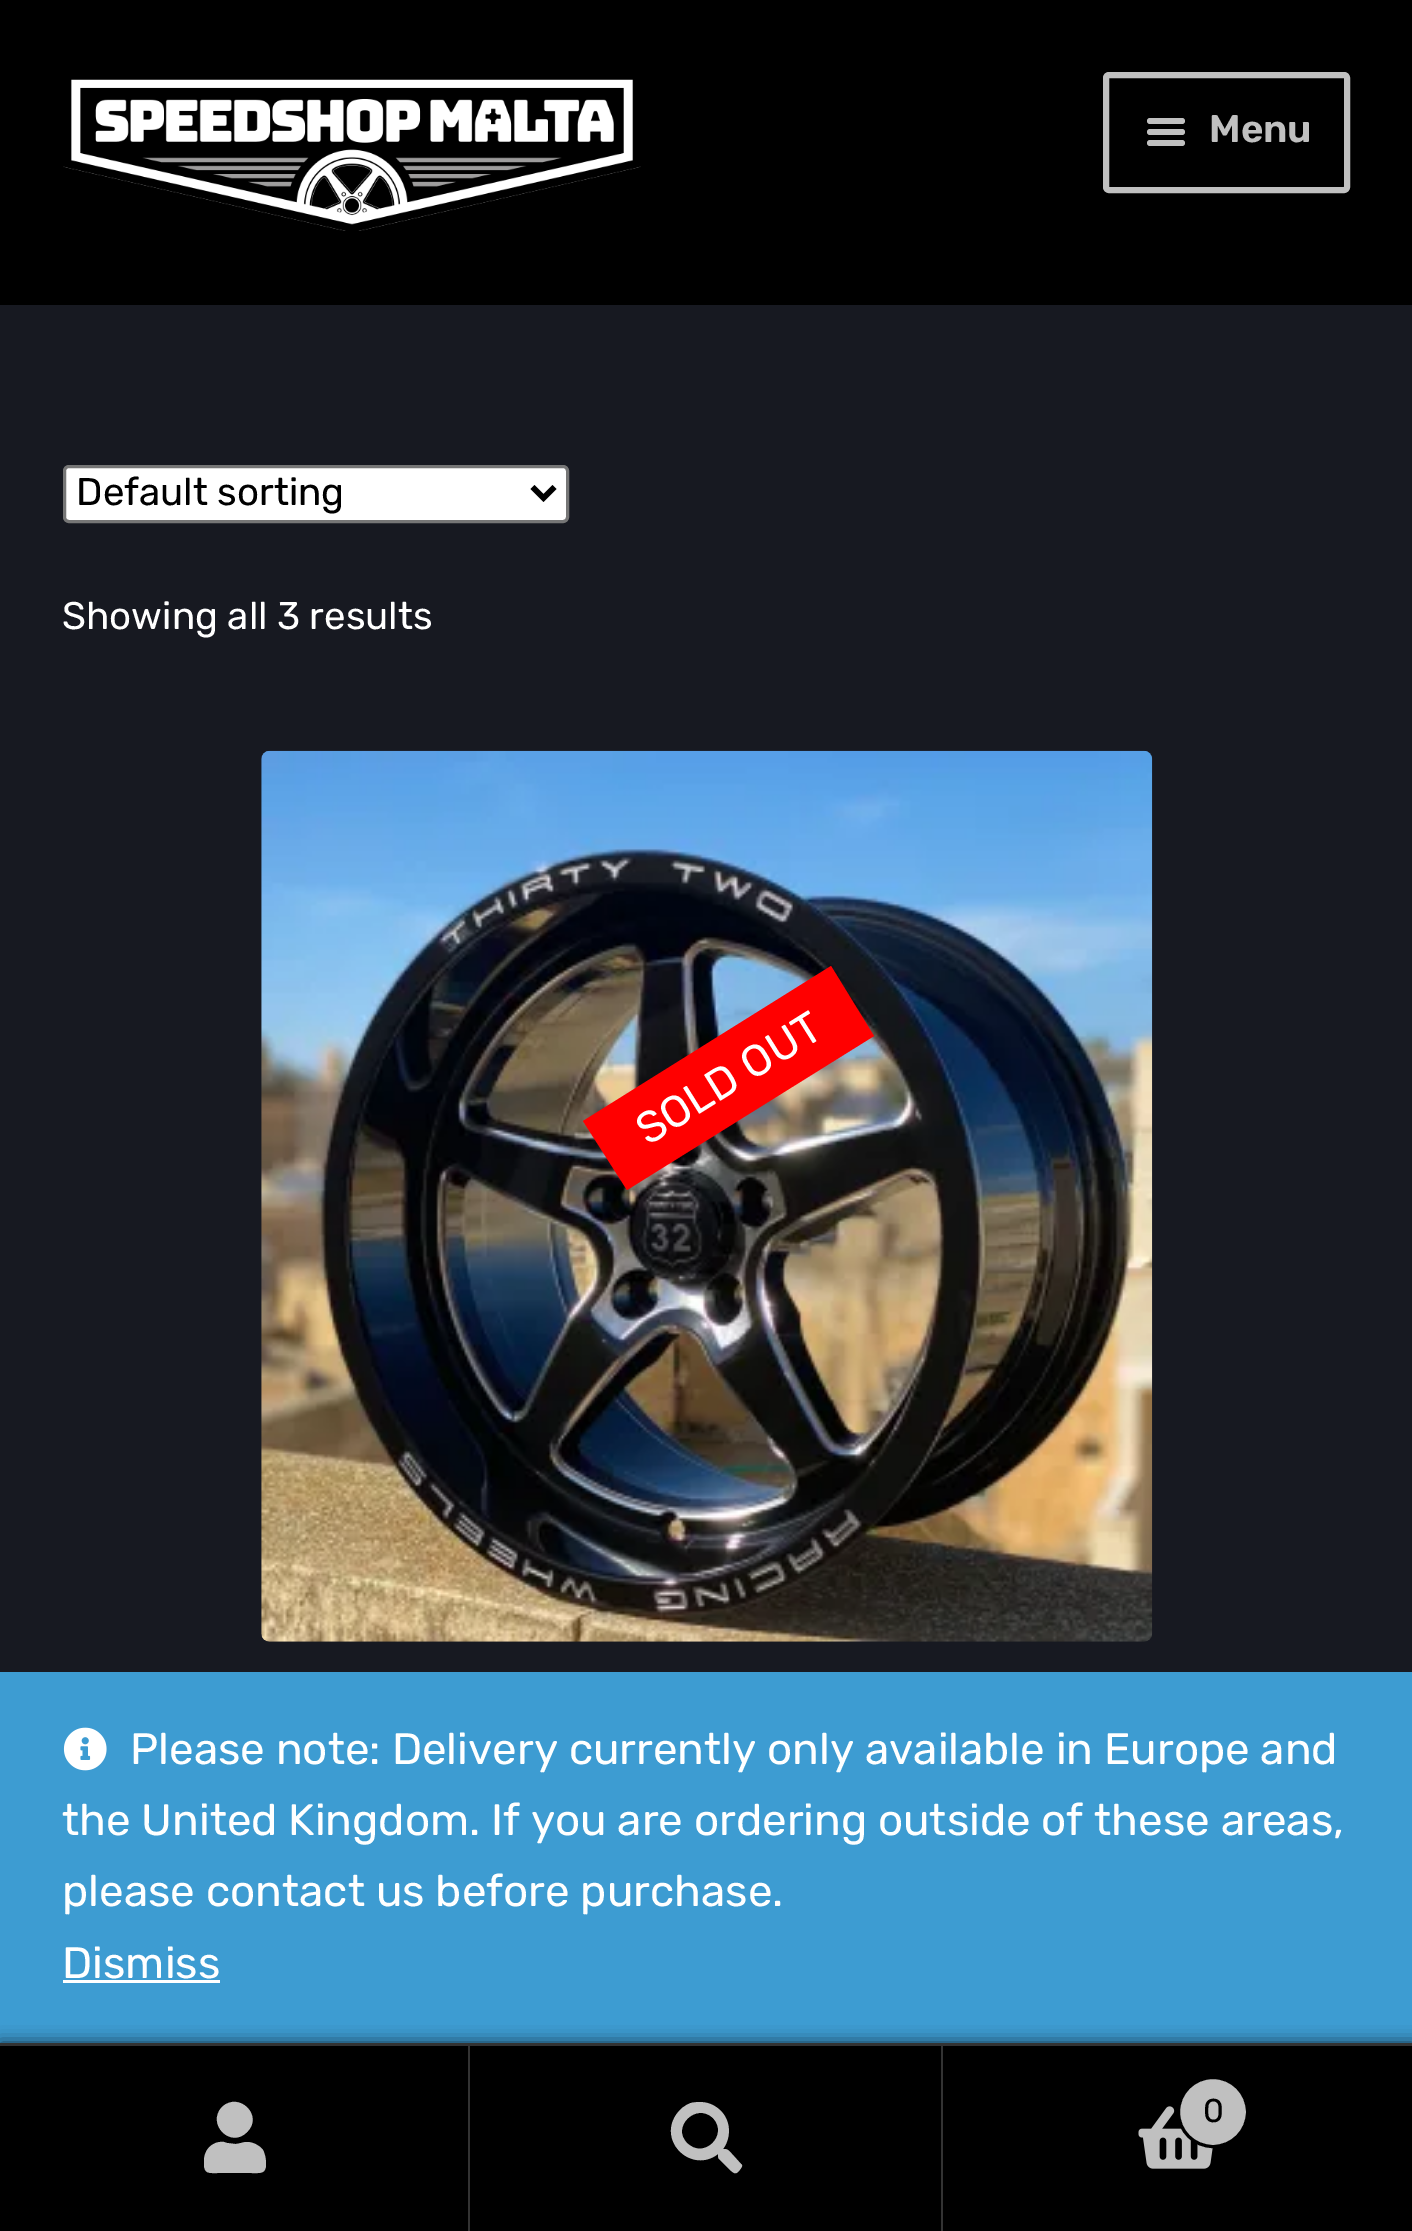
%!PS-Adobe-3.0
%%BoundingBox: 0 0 1412 2231
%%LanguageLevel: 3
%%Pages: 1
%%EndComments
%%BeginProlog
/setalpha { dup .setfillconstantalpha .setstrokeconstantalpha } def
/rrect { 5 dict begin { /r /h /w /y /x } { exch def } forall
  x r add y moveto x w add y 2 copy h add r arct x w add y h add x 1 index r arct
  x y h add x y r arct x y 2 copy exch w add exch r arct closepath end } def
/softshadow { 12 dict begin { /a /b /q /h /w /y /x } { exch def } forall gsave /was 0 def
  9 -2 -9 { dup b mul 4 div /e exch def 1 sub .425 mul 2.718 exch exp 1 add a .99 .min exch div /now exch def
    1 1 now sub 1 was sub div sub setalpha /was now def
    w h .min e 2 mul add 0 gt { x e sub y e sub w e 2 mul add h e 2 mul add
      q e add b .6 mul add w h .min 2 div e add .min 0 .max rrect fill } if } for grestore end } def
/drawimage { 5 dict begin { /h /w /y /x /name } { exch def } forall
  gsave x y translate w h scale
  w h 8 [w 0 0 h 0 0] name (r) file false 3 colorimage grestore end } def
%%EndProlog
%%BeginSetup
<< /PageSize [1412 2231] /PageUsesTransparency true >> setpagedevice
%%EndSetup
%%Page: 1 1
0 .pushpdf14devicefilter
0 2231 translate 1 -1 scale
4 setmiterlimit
0.09 0.098 0.129 setrgbcolor
0 0 1412 2231 rectfill
0 setgray
0 0 1412 305 rectfill
(images/1.raw) 63 79 578 152 drawimage
0.753 setgray
6 setlinewidth
1106 75 241 115 3 rrect stroke
1147 118 38 6 3 rrect fill
1147 129 38 6 3 rrect fill
1147 140 38 6 3 rrect fill
1 setgray
64.5 466.5 503 55 4.5 rrect gsave fill grestore
0.463 setgray
3 setlinewidth
stroke
0 setgray
5.5 setlinewidth
newpath 532.5 487 moveto 543.5 498 lineto 554.5 487 lineto stroke
(images/2.raw) 261 750 892 892 drawimage
1 0 0 setrgbcolor
newpath 583 1121 moveto 831 966 lineto 874 1036 lineto 627 1190 lineto closepath fill
0.239 0.612 0.824 setrgbcolor
0 1672 1412 371 rectfill
0 setgray
0 2043 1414 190 0 8 0.7 softshadow
0.2 setgray
0 2043 1412 3 rectfill
0 setgray
0 2046 468 185 rectfill
0.2 setgray
468 2046 2 185 rectfill
0.753 setgray
newpath 247 2132 moveto 231 2149 206 2124 222 2107 curveto 239 2091 264 2116 247 2132 curveto closepath 247 2142 moveto 253 2142 259 2145 263 2150 curveto 265 2154 266 2159 266 2164 curveto 266 2174 261 2173 251 2173 curveto 218 2173 lineto 209 2173 204 2174 204 2164 curveto 204 2159 204 2156 206 2152 curveto 209 2145 217 2141 224 2142 curveto 227 2143 lineto 235 2144 lineto 239 2144 243 2142 247 2142 curveto closepath fill
0 setgray
470 2046 471 185 rectfill
0.2 setgray
941 2046 2 185 rectfill
0.753 setgray
newpath 741 2164 moveto 744 2166 740 2169 739 2171 curveto 735 2175 734 2173 730 2170 curveto 721 2161 lineto 718 2158 718 2158 718 2154 curveto 692 2174 658 2142 676 2115 curveto 680 2109 685 2105 691 2103 curveto 700 2101 709 2102 716 2107 curveto 730 2116 733 2135 723 2149 curveto 728 2149 728 2150 732 2154 curveto closepath 687 2143 moveto 704 2160 729 2135 713 2118 curveto 696 2102 671 2127 687 2143 curveto closepath fill
0 setgray
943 2046 469 185 rectfill
(images/3.raw) 1138 2106 75 63 drawimage
0.753 setgray
newpath 1213 2112 34.5 0 360 arc closepath gsave fill grestore
0 setgray
3 setlinewidth
stroke
(images/4.raw) 63 1727 44 44 drawimage
1 setgray
63 1980 157 3 rectfill
/Rubik-SemiBold [38.5 0 0 -38.5 0 0] selectfont
0.753 setgray
1209 142 moveto (Menu) show
/Rubik-Light [38.5 0 0 -38.5 0 0] selectfont
0 setgray
76 505 moveto (Default sorting) show
1 setgray
62 629 moveto (Showing all 3 results) show
/Rubik-Light [44 0 0 -44 0 0] selectfont
gsave 648 1146 translate -32 rotate 0 0 moveto (SOLD OUT) show grestore
/Rubik-Light [33 0 0 -33 0 0] selectfont
0 setgray
1203 2122 moveto (0) show
/Rubik-Light [44 0 0 -44 0 0] selectfont
1 setgray
130 1764 moveto (Please note: Delivery currently only available in Europe and) show
62 1835 moveto (the United Kingdom. If you are ordering outside of these areas,) show
62 1906 moveto (please contact us before purchase.) show
62 1978 moveto (Dismiss) show
.poppdf14devicefilter showpage
%%EOF
